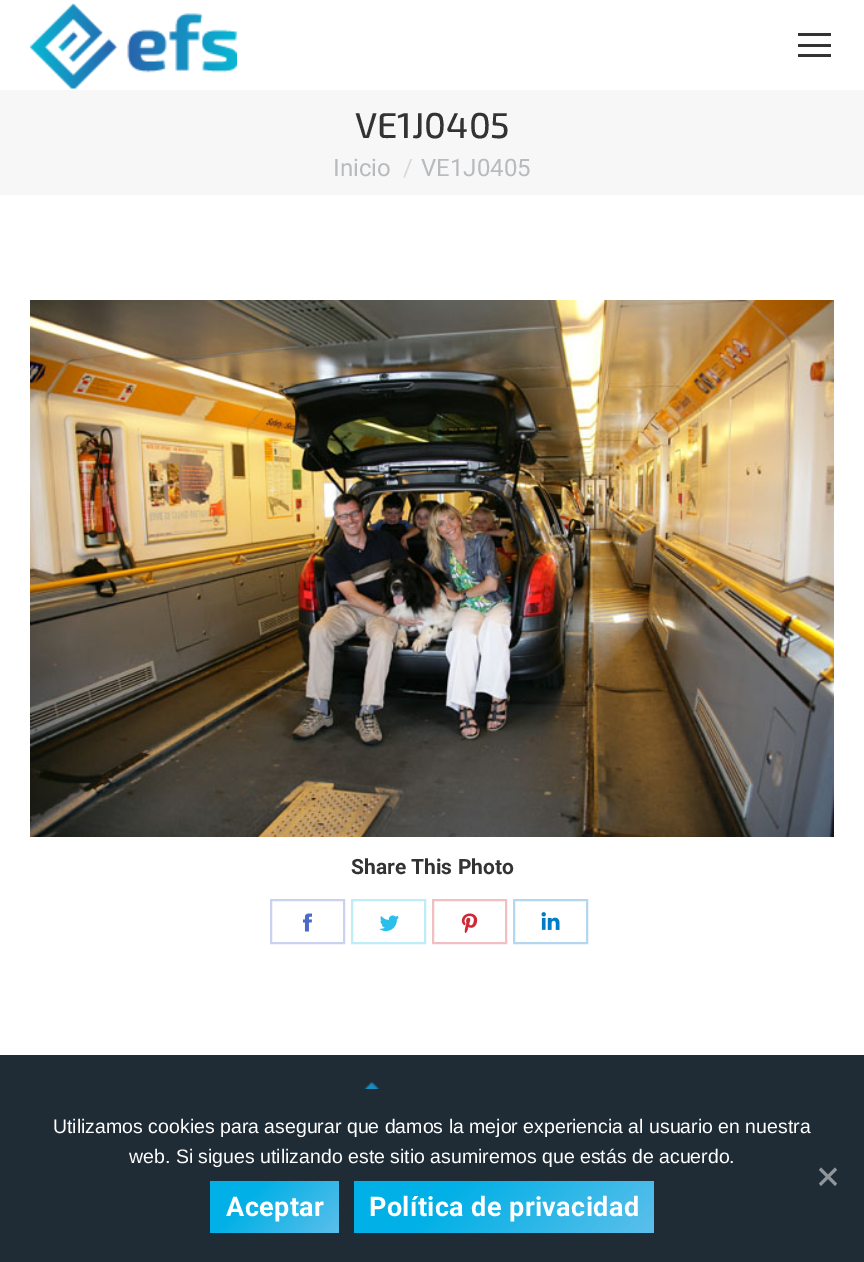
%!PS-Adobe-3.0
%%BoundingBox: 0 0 864 1262
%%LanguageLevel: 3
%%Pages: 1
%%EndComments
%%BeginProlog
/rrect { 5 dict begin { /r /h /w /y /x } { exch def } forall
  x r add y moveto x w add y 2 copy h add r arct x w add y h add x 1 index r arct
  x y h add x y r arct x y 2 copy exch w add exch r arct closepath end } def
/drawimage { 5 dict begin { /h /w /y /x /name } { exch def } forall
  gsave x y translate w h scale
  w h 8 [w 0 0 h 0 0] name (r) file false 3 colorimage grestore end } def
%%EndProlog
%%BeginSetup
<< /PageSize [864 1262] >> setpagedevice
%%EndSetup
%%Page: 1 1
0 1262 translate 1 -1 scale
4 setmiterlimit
1 setgray
0 0 864 1262 rectfill
(images/1.raw) 30 3 207 86 drawimage
0.2 setgray
798 33 33 3 rectfill
798 44 33 3 rectfill
798 54 33 3 rectfill
0.969 setgray
0 90 864 105 rectfill
(images/2.raw) 30 300 804 537 drawimage
0.788 0.824 0.933 setrgbcolor
2 setlinewidth
271 900 73 43 rectstroke
(images/3.raw) 302 913 11 19 drawimage
0.749 0.925 0.976 setrgbcolor
352 900 73 43 rectstroke
(images/4.raw) 379 915 20 17 drawimage
0.945 0.749 0.761 setrgbcolor
433 900 73 43 rectstroke
(images/5.raw) 461 913 17 20 drawimage
0.702 0.843 0.933 setrgbcolor
514 900 73 43 rectstroke
(images/6.raw) 541 912 19 18 drawimage
0.122 0.173 0.212 setrgbcolor
0 1055 864 207 rectfill
(images/7.raw) 364 1081 16 8 drawimage
0.561 0.588 0.608 setrgbcolor
newpath 835 1167.5 moveto 837 1170 lineto 821 1186 lineto 819 1183.5 lineto closepath fill
newpath 819 1170 moveto 821 1167.5 lineto 837 1183.5 lineto 835 1186 lineto closepath fill
gsave 210 1181 129 52 3 rrect clip newpath
<< /ShadingType 2 /ColorSpace /DeviceRGB /Coords [229 1161 320 1252] /Extend [true true] /Function << /FunctionType 3 /Domain [0 1] /Functions [<< /FunctionType 2 /Domain [0 1] /C0 [0 0.69 0.902] /C1 [0 0.69 0.902] /N 1 >> << /FunctionType 2 /Domain [0 1] /C0 [0 0.69 0.902] /C1 [0.361 0.749 0.922] /N 1 >>] /Bounds [0.3] /Encode [0 1 0 1] >> >> shfill grestore
gsave 354 1181 300 52 3 rrect clip newpath
<< /ShadingType 2 /ColorSpace /DeviceRGB /Coords [416 1119 592 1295] /Extend [true true] /Function << /FunctionType 3 /Domain [0 1] /Functions [<< /FunctionType 2 /Domain [0 1] /C0 [0 0.69 0.902] /C1 [0 0.69 0.902] /N 1 >> << /FunctionType 2 /Domain [0 1] /C0 [0 0.69 0.902] /C1 [0.361 0.749 0.922] /N 1 >>] /Bounds [0.3] /Encode [0 1 0 1] >> >> shfill grestore
/Exo2-Medium [36 0 0 -36 0 0] selectfont
0.2 setgray
355 138 moveto (VE1J0405) show
/Roboto-Regular [24 0 0 -24 0 0] selectfont
0.718 0.729 0.745 setrgbcolor
333 176 moveto (Inicio) show
0.843 0.851 0.859 setrgbcolor
403 176 moveto (/) show
0.718 0.729 0.745 setrgbcolor
421 176 moveto (VE1J0405) show
/Roboto-Bold [21 0 0 -21 0 0] selectfont
0.2 setgray
351 874 moveto (Share This Photo) show
/LiberationSans-Regular [19.5 0 0 -19.5 0 0] selectfont
1 setgray
53 1133 moveto (Utilizamos cookies para asegurar que damos la mejor experiencia al usuario en nuestra) show
129 1163 moveto (web. Si sigues utilizando este sitio asumiremos que estás de acuerdo.) show
/Roboto-Bold [27 0 0 -27 0 0] selectfont
226 1216 moveto 0.4 0 (Aceptar) ashow
369 1216 moveto 0.4 0 (Política de privacidad) ashow
showpage
%%EOF
